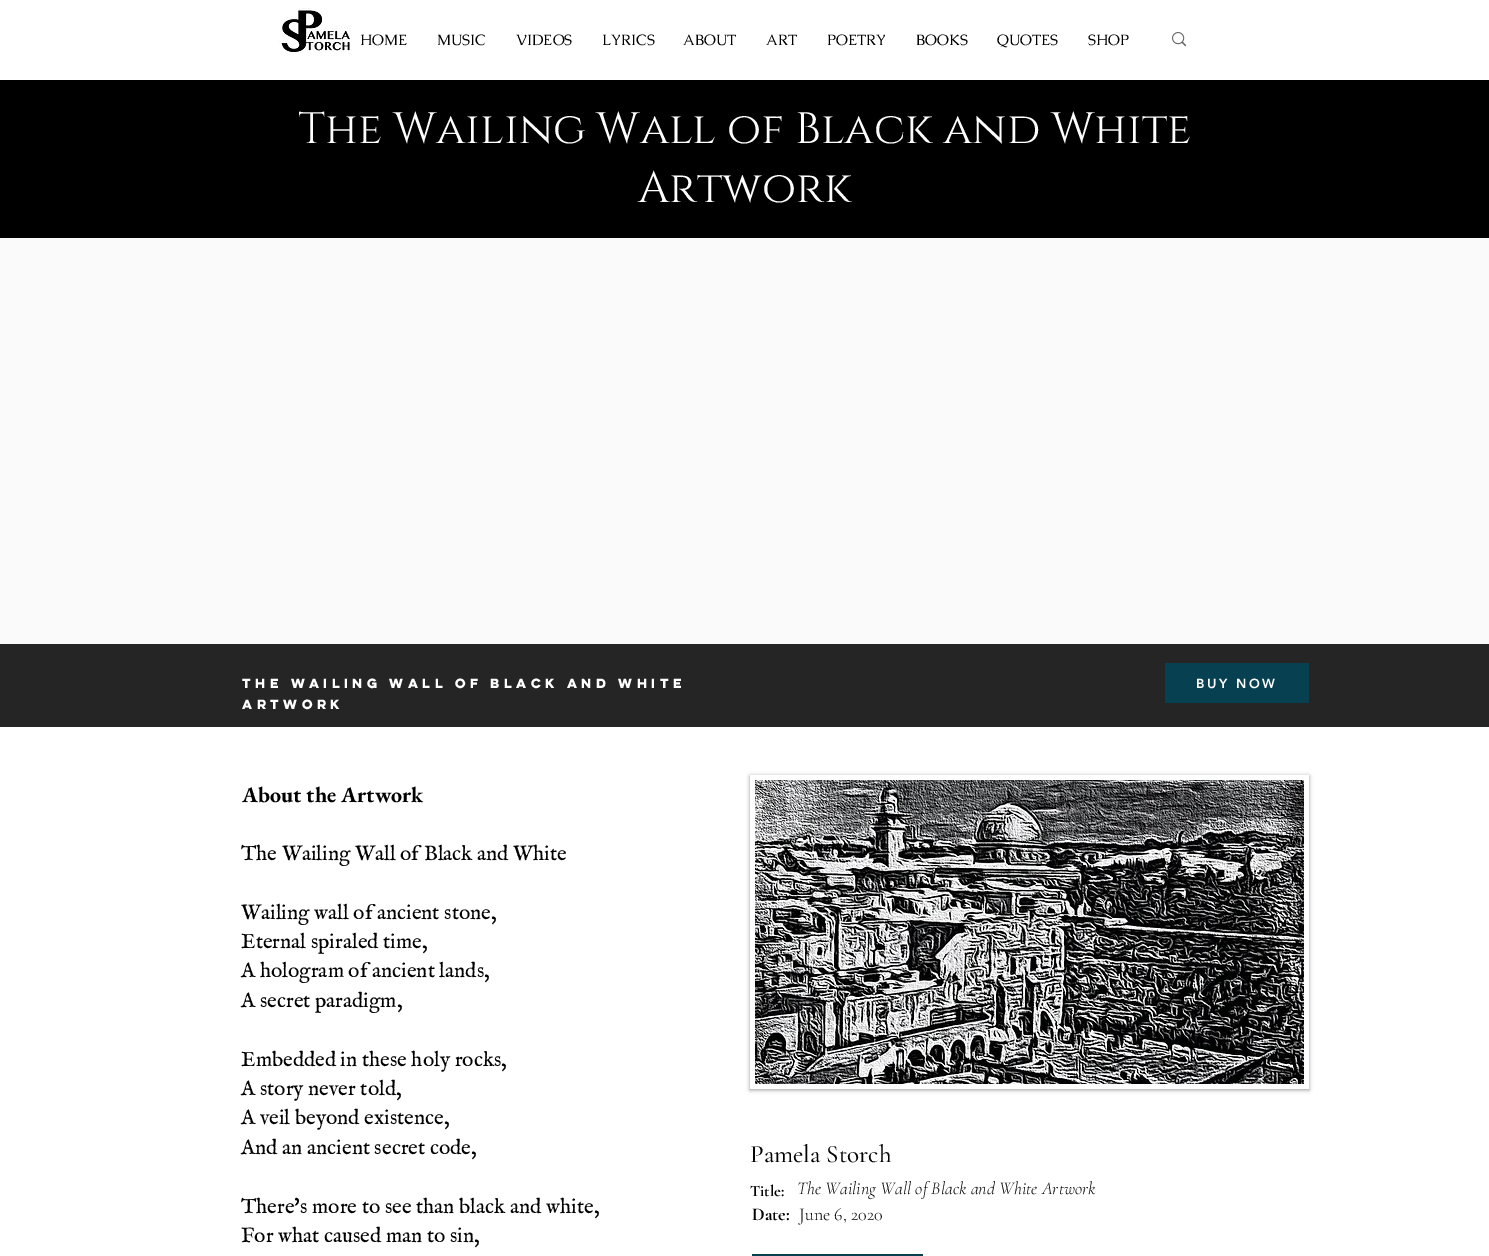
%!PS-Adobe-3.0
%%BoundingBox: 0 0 1489 1256
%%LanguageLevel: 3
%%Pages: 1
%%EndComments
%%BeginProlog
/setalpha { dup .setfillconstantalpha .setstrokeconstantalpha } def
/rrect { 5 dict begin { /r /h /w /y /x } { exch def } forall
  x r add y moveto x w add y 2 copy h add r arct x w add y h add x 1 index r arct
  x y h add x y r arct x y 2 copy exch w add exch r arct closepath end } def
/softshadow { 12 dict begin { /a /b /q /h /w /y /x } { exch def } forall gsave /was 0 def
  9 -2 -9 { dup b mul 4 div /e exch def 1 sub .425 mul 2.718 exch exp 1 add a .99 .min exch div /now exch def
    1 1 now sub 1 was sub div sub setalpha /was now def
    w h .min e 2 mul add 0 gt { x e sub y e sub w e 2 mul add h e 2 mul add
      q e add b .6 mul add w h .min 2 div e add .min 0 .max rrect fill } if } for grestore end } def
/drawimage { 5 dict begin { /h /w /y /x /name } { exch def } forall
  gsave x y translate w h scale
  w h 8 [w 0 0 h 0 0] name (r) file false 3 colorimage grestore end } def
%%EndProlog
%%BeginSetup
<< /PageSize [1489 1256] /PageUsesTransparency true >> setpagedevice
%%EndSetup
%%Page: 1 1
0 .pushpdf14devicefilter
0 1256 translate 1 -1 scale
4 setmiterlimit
1 setgray
0 0 1489 1256 rectfill
(images/1.raw) 278 8 72 44 drawimage
(images/2.raw) 1172 32 14 15 drawimage
0 setgray
0 80 1489 158 rectfill
0.98 setgray
0 238 1489 406 rectfill
0.145 setgray
0 644 1489 83 rectfill
0.027 0.255 0.318 setrgbcolor
1165 663 144 40 rectfill
gsave
newpath 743 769 moveto 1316 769 lineto 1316 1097 lineto 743 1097 lineto closepath 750 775 moveto 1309 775 lineto 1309 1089 lineto 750 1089 lineto closepath eoclip newpath
0 setgray
750 776 559 314 0 2 0.4 softshadow
grestore
(images/3.raw) 755 780 549 304 drawimage
752 1254 171 2 rectfill
/Caudex-Regular [15 0 0 -15 0 0] selectfont
0 setgray
360 45 moveto (HOME) show
437 45 moveto (MUSIC) show
516 45 moveto (VIDEOS) show
602 45 moveto (LYRICS) show
683 45 moveto (ABOUT) show
766 45 moveto (ART) show
827 45 moveto (POETRY) show
916 45 moveto (BOOKS) show
997 45 moveto (QUOTES) show
1088 45 moveto (SHOP) show
/Cinzel-Regular [44 0 0 -44 0 0] selectfont
1 setgray
298 143 moveto (The Wailing Wall of Black and White) show
638 202 moveto (Artwork) show
/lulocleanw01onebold-Bold [12 0 0 -12 0 0] selectfont
242 688 moveto 1.8 0 (The Wailing Wall of Black and White) ashow
242 709 moveto 1.8 0 (Artwork) ashow
/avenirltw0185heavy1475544-Black [13 0 0 -13 0 0] selectfont
1196 688 moveto 2.5 0 (BUY NOW) ashow
/EBGaramond-Bold [22 0 0 -22 0 0] selectfont
0 setgray
242 802 moveto (About the Artwork) show
/IMFELLEnglish-Regular [21 0 0 -21 0 0] selectfont
241 860 moveto (The Wailing Wall of Black and White) show
241 919 moveto (Wailing wall of ancient stone,) show
241 948 moveto (Eternal spiraled time,) show
241 977 moveto (A hologram of ancient lands,) show
241 1007 moveto (A secret paradigm,) show
241 1066 moveto (Embedded in these holy rocks,) show
241 1095 moveto (A story never told,) show
241 1124 moveto (A veil beyond existence,) show
241 1154 moveto (And an ancient secret code,) show
241 1213 moveto (There's more to see than black and white,) show
241 1242 moveto (For what caused man to sin,) show
/CormorantGaramond-Medium [25 0 0 -25 0 0] selectfont
750 1162 moveto (Pamela Storch) show
/CormorantGaramond-Bold [16 0 0 -16 0 0] selectfont
750 1196 moveto (Title:) show
/CormorantGaramond-LightItalic [18 0 0 -18 0 0] selectfont
797 1194 moveto (The Wailing Wall of Black and White Artwork) show
/CormorantGaramond-Bold [18 0 0 -18 0 0] selectfont
752 1220 moveto (Date:) show
/CormorantGaramond-Light [18 0 0 -18 0 0] selectfont
799 1220 moveto (June 6, 2020) show
.poppdf14devicefilter showpage
%%EOF
